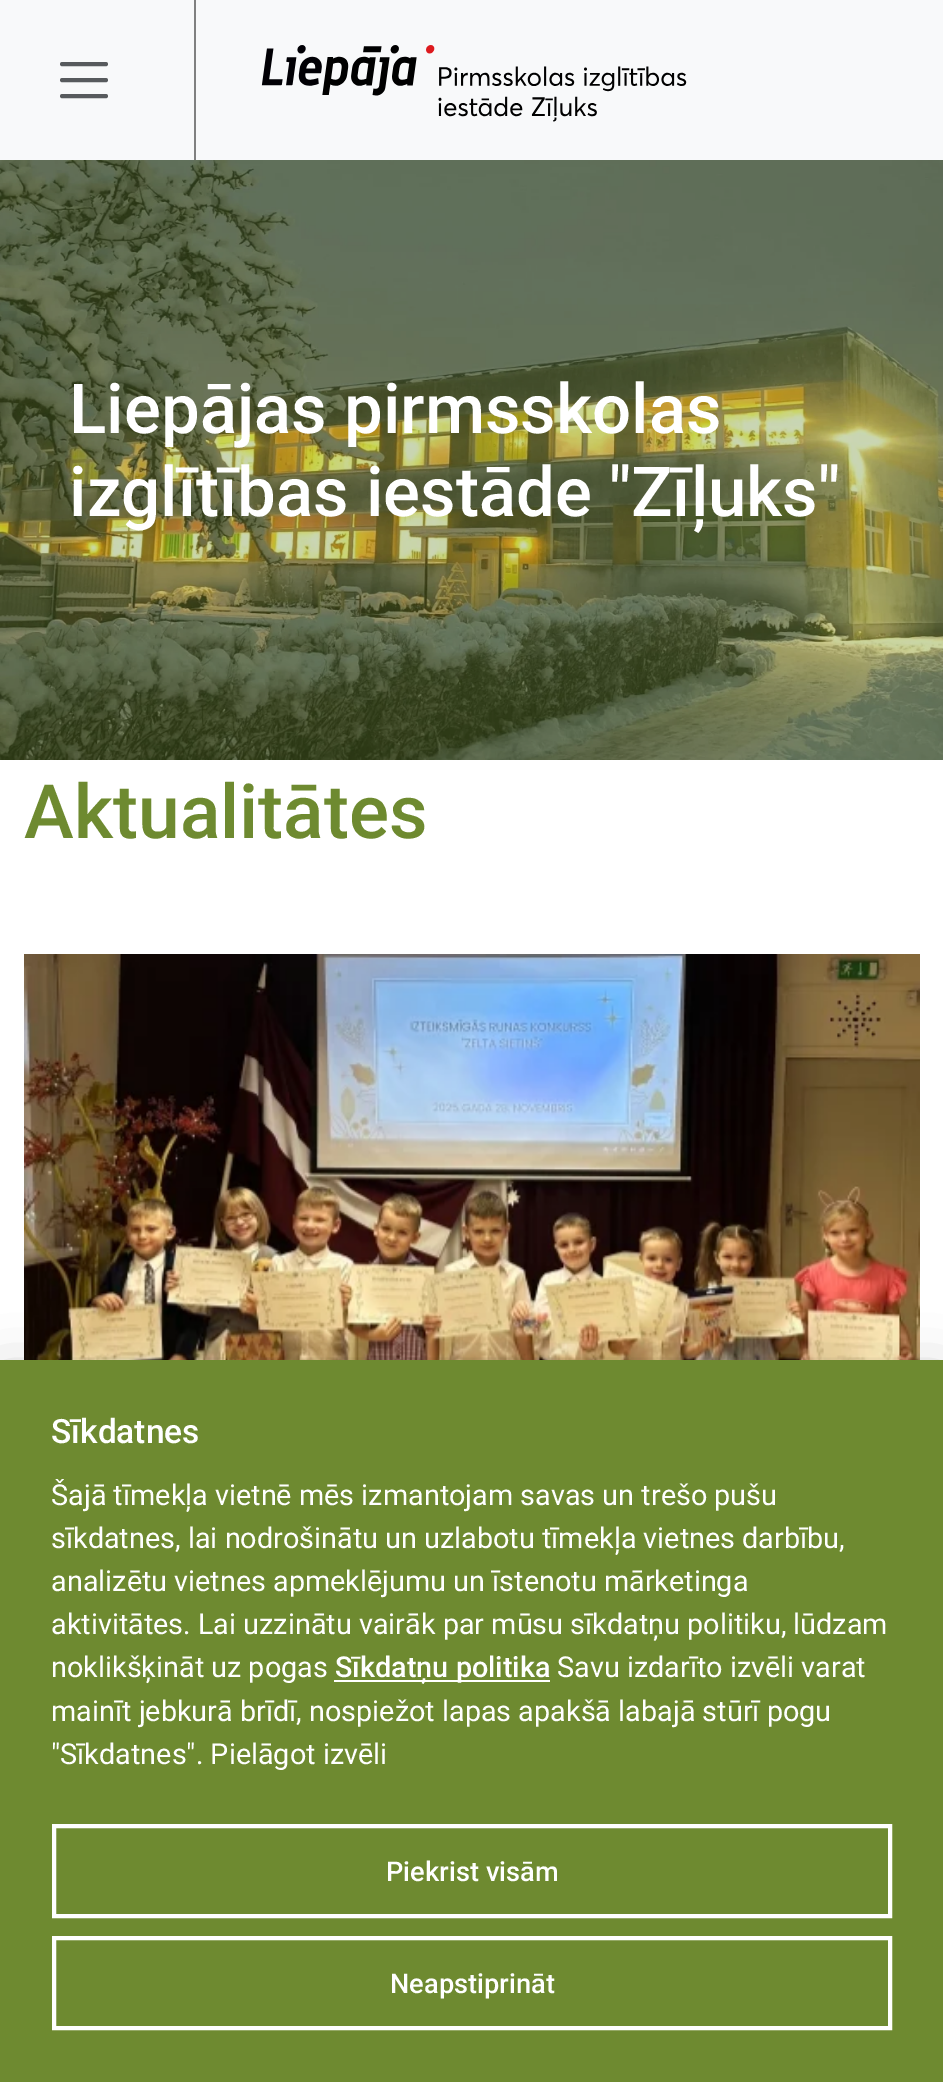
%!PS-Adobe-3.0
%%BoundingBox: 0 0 943 2082
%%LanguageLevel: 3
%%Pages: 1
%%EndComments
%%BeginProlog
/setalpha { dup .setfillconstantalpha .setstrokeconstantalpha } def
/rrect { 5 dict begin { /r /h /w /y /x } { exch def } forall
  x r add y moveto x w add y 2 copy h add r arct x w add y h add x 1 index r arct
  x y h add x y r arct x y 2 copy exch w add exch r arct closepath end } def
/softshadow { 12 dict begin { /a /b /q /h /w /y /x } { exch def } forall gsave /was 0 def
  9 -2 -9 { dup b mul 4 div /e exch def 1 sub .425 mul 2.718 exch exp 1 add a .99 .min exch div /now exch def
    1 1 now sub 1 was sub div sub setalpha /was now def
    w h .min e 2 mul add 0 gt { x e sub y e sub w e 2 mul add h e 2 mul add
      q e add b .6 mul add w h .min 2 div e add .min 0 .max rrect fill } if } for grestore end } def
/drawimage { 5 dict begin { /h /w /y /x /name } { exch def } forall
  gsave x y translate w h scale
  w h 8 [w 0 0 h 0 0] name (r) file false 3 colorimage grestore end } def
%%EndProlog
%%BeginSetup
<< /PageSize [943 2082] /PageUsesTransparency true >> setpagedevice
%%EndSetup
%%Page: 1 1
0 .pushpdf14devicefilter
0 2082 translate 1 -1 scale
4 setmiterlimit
1 setgray
0 0 943 2082 rectfill
0.973 0.976 0.98 setrgbcolor
0 0 943 160 rectfill
0.502 setgray
194 0 2 160 rectfill
0.341 0.353 0.365 setrgbcolor
4 setlinewidth
1 setlinecap
newpath 62 64 moveto 106 64 lineto 62 80 moveto 106 80 lineto 62 96 moveto 106 96 lineto stroke
(images/1.raw) 261 45 426 77 drawimage
(images/2.raw) 0 160 943 600 drawimage
(images/3.raw) 24 954 896 406 drawimage
0.008 0.008 0.012 setrgbcolor
0 1380 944 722 0 30 0.28 softshadow
0.431 0.541 0.188 setrgbcolor
0 1360 943 722 rectfill
1 setgray
334 1680 216 2 rectfill
0 setlinecap
54 1826 836 90 rectstroke
54 1938 836 90 rectstroke
/Roboto-Medium [69 0 0 -69 0 0] selectfont
69 433 moveto (Liepājas pirmsskolas) show
69 516 moveto (izglītības iestāde "Zīļuks") show
/Roboto-Medium [75 0 0 -75 0 0] selectfont
0.431 0.541 0.188 setrgbcolor
24 838 moveto (Aktualitātes) show
/Roboto-Medium [33.5 0 0 -33.5 0 0] selectfont
1 setgray
51 1443 moveto (Sīkdatnes) show
/Roboto-Regular [28.8 0 0 -28.8 0 0] selectfont
51 1505 moveto (Šajā tīmekļa vietnē mēs izmantojam savas un trešo pušu) show
51 1548 moveto (sīkdatnes, lai nodrošinātu un uzlabotu tīmekļa vietnes darbību,) show
51 1591 moveto (analizētu vietnes apmeklējumu un īstenotu mārketinga) show
51 1634 moveto (aktivitātes. Lai uzzinātu vairāk par mūsu sīkdatņu politiku, lūdzam) show
51 1677 moveto (noklikšķināt uz pogas) show
/Roboto-Medium [28.8 0 0 -28.8 0 0] selectfont
335 1677 moveto (Sīkdatņu politika) show
/Roboto-Regular [28.8 0 0 -28.8 0 0] selectfont
557 1677 moveto (Savu izdarīto izvēli varat) show
51 1721 moveto (mainīt jebkurā brīdī, nospiežot lapas apakšā labajā stūrī pogu) show
51 1764 moveto ("Sīkdatnes". Pielāgot izvēli) show
/Roboto-Medium [27.25 0 0 -27.25 0 0] selectfont
386 1881 moveto (Piekrist visām) show
390 1993 moveto (Neapstiprināt) show
.poppdf14devicefilter showpage
%%EOF
